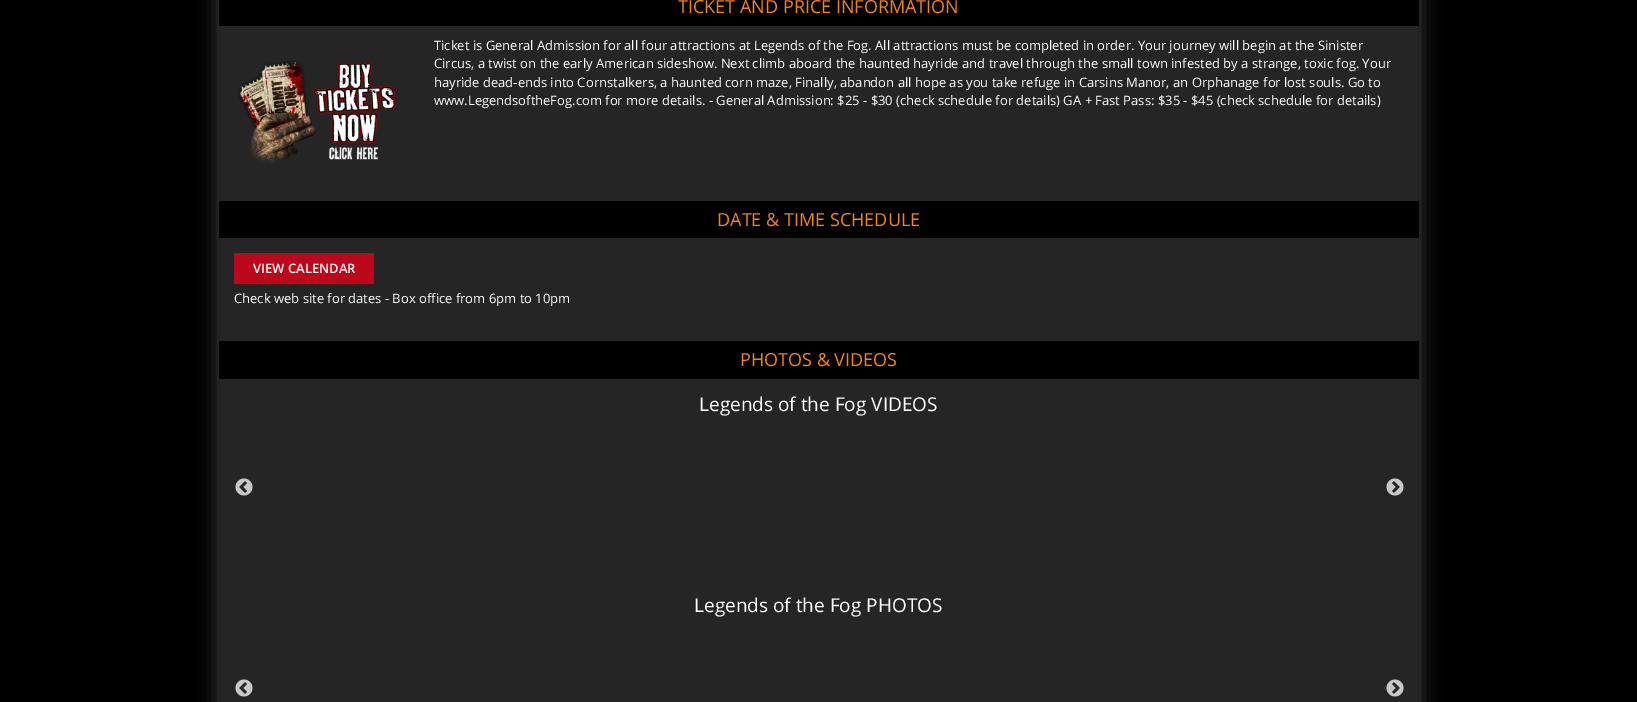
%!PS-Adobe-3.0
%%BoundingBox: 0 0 1637 702
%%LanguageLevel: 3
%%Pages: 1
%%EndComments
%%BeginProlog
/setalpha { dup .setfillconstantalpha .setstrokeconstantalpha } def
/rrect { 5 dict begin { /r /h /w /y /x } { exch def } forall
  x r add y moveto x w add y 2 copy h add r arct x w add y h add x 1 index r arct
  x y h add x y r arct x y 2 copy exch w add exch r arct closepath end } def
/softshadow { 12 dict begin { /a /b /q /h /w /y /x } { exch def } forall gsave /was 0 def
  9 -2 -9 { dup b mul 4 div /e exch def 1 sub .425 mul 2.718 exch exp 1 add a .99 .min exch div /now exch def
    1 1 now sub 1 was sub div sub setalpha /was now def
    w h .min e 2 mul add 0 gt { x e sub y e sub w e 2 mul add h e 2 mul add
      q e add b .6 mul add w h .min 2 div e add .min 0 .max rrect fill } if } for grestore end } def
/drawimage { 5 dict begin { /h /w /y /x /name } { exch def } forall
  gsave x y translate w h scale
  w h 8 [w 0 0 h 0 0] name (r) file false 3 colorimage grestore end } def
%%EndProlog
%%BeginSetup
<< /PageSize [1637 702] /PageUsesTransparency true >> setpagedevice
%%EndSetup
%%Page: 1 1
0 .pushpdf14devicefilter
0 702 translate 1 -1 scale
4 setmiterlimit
0 setgray
0 0 1637 702 rectfill
0.373 setgray
219 -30 1200 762 0 10 0.75 softshadow
0.145 setgray
220 26 1198 676 rectfill
0 setgray
219 0 1200 26 rectfill
(images/1.raw) 238 61 158 103 drawimage
219 201 1200 37 rectfill
0.741 0.031 0.11 setrgbcolor
234 253 140 31 rectfill
0 setgray
219 341 1200 38 rectfill
(images/2.raw) 235 478 18 18 drawimage
(images/3.raw) 1386 478 18 18 drawimage
(images/2.raw) 235 679 18 18 drawimage
(images/3.raw) 1386 679 18 18 drawimage
/OpenSans-Regular [18 0 0 -18 0 0] selectfont
0.937 0.518 0.129 setrgbcolor
678 13 moveto (TICKET AND PRICE INFORMATION) show
/OpenSans-Regular [13 0 0 -13 0 0] selectfont
1 setgray
434 50 moveto (Ticket is General Admission for all four attractions at Legends of the Fog. All attractions must be completed in order. Your journey will begin at the Sinister) show
434 68 moveto (Circus, a twist on the early American sideshow. Next climb aboard the haunted hayride and travel through the small town infested by a strange, toxic fog. Your) show
434 87 moveto (hayride dead-ends into Cornstalkers, a haunted corn maze, Finally, abandon all hope as you take refuge in Carsins Manor, an Orphanage for lost souls. Go to) show
434 105 moveto (www.LegendsoftheFog.com for more details. - General Admission: $25 - $30 \(check schedule for details\) GA + Fast Pass: $35 - $45 \(check schedule for details\)) show
/OpenSans-Regular [18 0 0 -18 0 0] selectfont
0.937 0.518 0.129 setrgbcolor
717 226 moveto (DATE & TIME SCHEDULE) show
/OpenSans-SemiBold [13 0 0 -13 0 0] selectfont
1 setgray
253 273 moveto (VIEW CALENDAR) show
/OpenSans-Regular [13 0 0 -13 0 0] selectfont
234 303 moveto (Check web site for dates - Box office from 6pm to 10pm) show
/OpenSans-Regular [18 0 0 -18 0 0] selectfont
0.937 0.518 0.129 setrgbcolor
740 366 moveto (PHOTOS & VIDEOS) show
/OpenSans-Regular [19 0 0 -19 0 0] selectfont
1 setgray
699 411 moveto (Legends of the Fog VIDEOS) show
694 612 moveto (Legends of the Fog PHOTOS) show
.poppdf14devicefilter showpage
%%EOF
